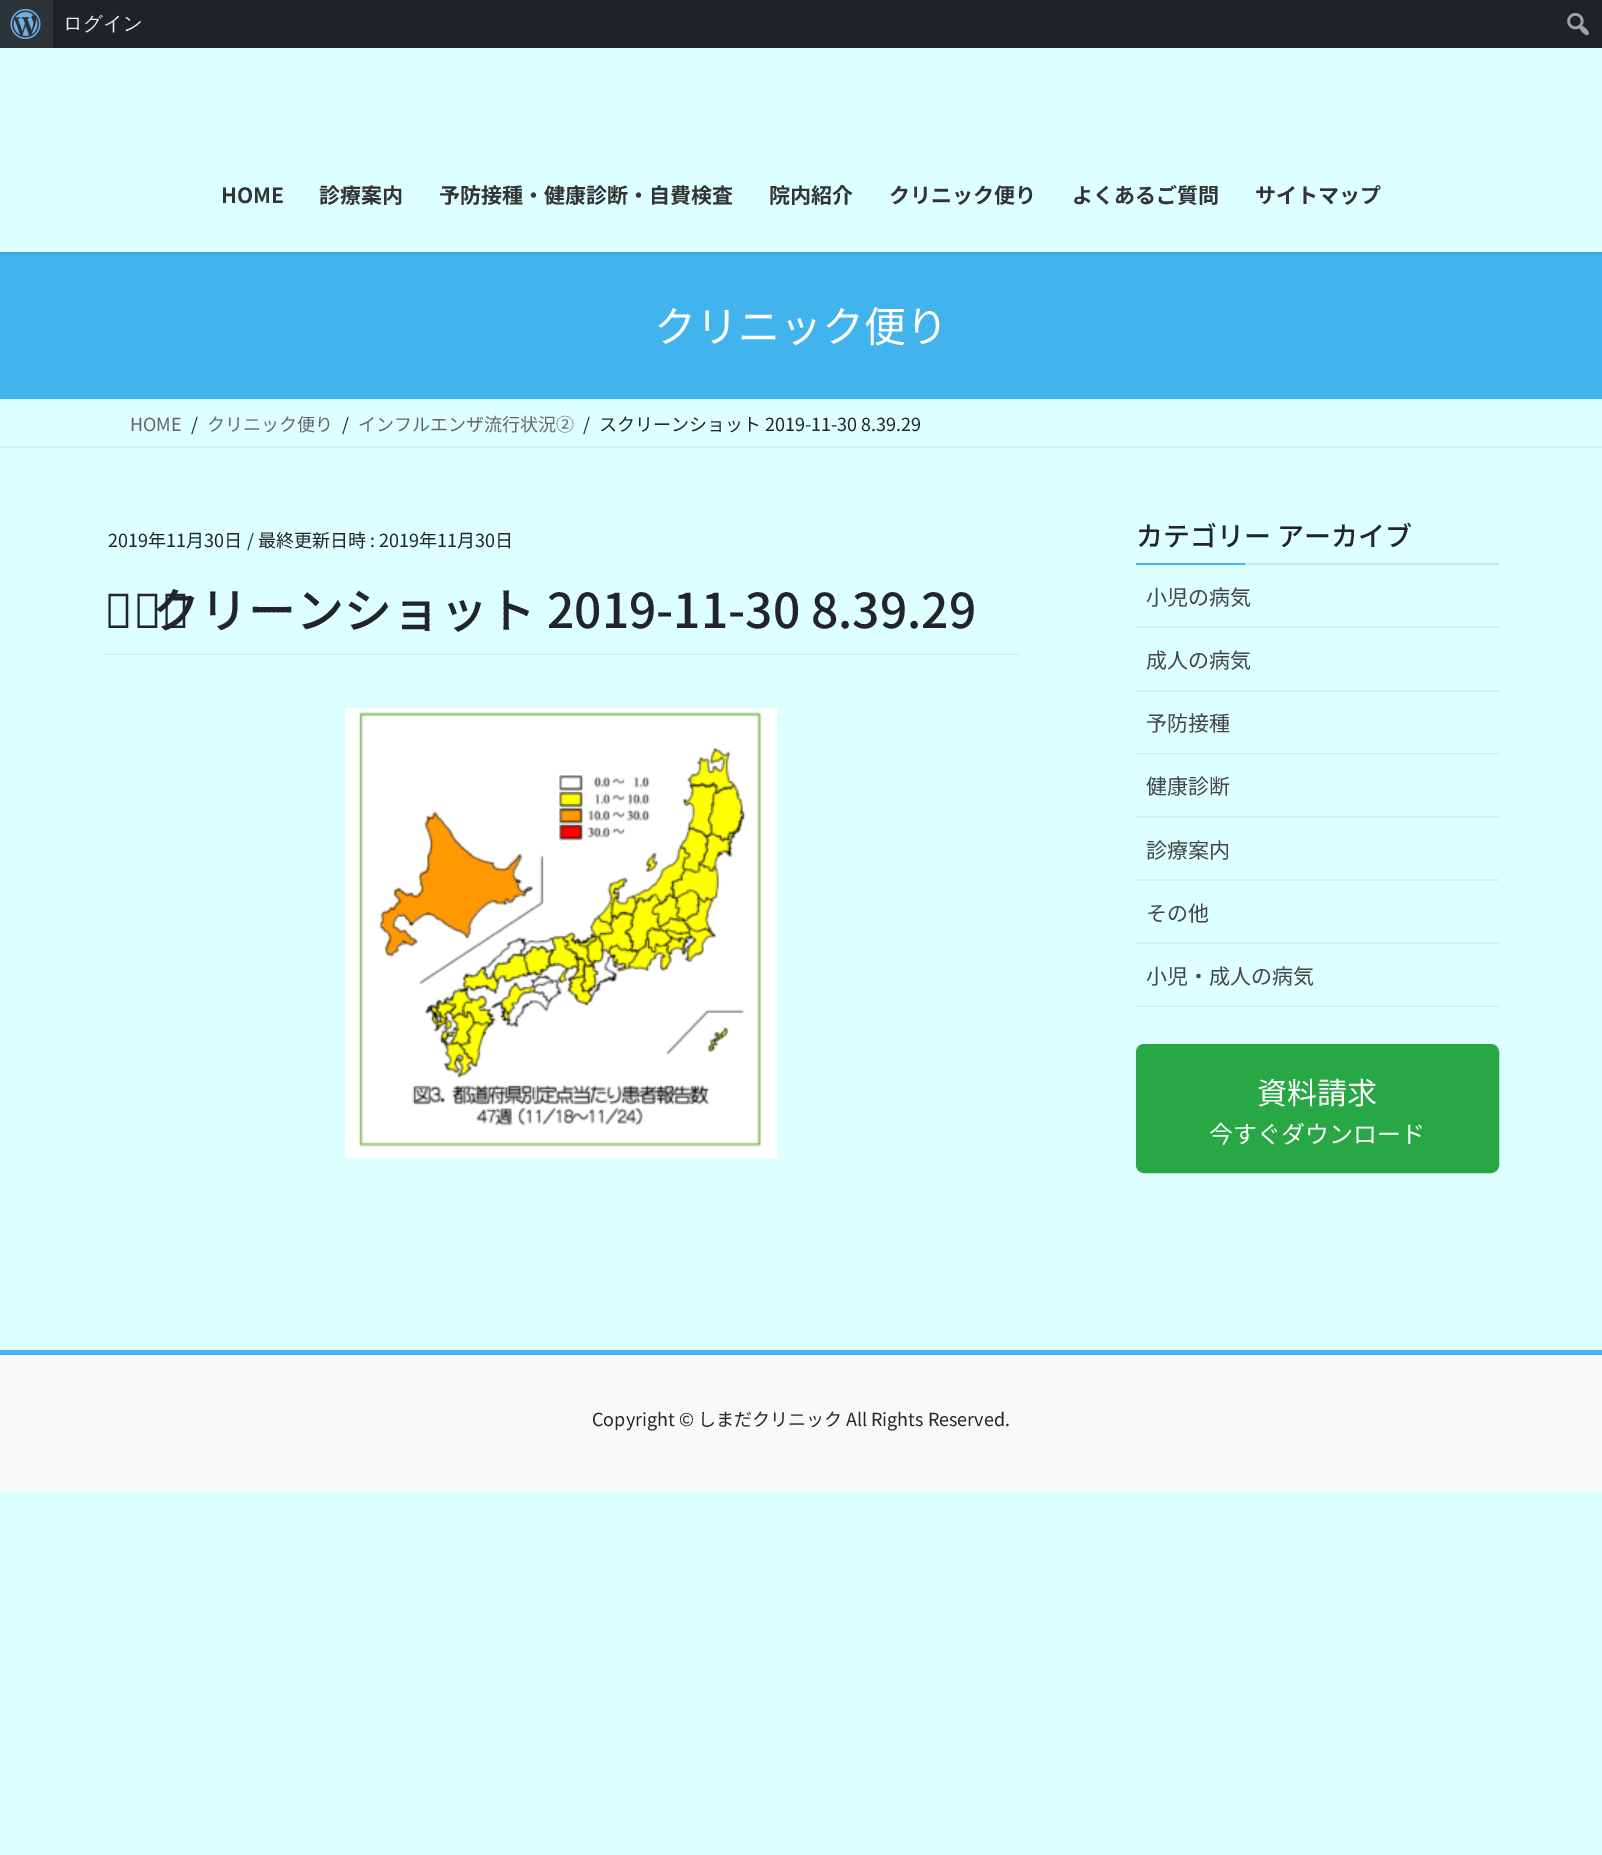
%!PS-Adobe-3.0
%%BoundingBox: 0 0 1602 1855
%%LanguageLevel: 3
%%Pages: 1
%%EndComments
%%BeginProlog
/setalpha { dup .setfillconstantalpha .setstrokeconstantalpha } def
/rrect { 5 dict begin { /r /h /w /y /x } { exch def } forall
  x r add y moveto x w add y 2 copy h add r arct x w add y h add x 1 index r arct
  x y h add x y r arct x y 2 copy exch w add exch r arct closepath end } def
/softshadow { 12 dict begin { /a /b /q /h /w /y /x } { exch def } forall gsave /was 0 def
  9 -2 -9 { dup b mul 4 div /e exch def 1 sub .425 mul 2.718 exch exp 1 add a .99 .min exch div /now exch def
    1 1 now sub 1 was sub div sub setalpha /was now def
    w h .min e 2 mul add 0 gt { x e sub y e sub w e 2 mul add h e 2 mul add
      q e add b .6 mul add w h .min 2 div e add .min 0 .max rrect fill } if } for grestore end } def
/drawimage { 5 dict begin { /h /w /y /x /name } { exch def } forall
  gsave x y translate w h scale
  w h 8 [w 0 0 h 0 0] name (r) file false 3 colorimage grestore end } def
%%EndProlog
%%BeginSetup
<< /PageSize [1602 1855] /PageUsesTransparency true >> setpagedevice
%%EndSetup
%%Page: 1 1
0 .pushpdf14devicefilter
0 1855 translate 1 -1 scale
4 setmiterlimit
0.867 1 1 setrgbcolor
0 0 1602 1855 rectfill
0.259 0.706 0.929 setrgbcolor
0 252 1602 147 rectfill
gsave
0 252 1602 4 rectclip
0 setgray
0 50 1602 204 0 2 0.1 softshadow
grestore
0.114 0.137 0.153 setrgbcolor
53 0 1549 48 rectfill
0.173 0.2 0.22 setrgbcolor
0 0 53 48 rectfill
(images/1.raw) 10 9 31 30 drawimage
(images/2.raw) 1567 12 22 24 drawimage
0.824 0.949 0.949 setrgbcolor
0 446 1602 2 rectfill
104 653 915 2 rectfill
(images/3.raw) 345 708 432 450 drawimage
0.78 0.902 0.902 setrgbcolor
1245 563 254 2 rectfill
0.259 0.706 0.929 setrgbcolor
1136 563 109 2 rectfill
0.824 0.949 0.949 setrgbcolor
1136 626 363 2 rectfill
1136 690 363 2 rectfill
1136 753 363 2 rectfill
1136 816 363 2 rectfill
1136 879 363 2 rectfill
1136 942 363 2 rectfill
1136 1005 363 2 rectfill
0.157 0.655 0.271 setrgbcolor
1137 1045 361 127 7 rrect gsave fill grestore
2 setlinewidth
stroke
0.976 setgray
0 1355 1602 136 rectfill
0.259 0.706 0.929 setrgbcolor
0 1350 1602 5 rectfill
/WenQuanYiZenHei-Medium [19.5 0 0 -19.5 0 0] selectfont
0.941 0.941 0.945 setrgbcolor
63 30 moveto (ログイン) show
/NotoSansJP-Bold [21 0 0 -21 0 0] selectfont
0.2 setgray
221 203 moveto (HOME) show
319 203 moveto (診療案内) show
439 203 moveto (予防接種・健康診断・自費検査) show
769 203 moveto (院内紹介) show
889 203 moveto (クリニック便り) show
1072 203 moveto (よくあるご質問) show
1255 203 moveto (サイトマップ) show
/NotoSansJP-Regular [42 0 0 -42 0 0] selectfont
1 setgray
654 342 moveto (クリニック便り) show
/NotoSansJP-Regular [18 0 0 -18 0 0] selectfont
0.4 setgray
130 431 moveto (HOME) show
0.129 0.145 0.161 setrgbcolor
191 431 moveto (/) show
0.4 setgray
207 431 moveto (クリニック便り) show
0.129 0.145 0.161 setrgbcolor
342 431 moveto (/) show
0.4 setgray
358 431 moveto (インフルエンザ流行状況②) show
0.129 0.145 0.161 setrgbcolor
583 431 moveto (/) show
599 431 moveto (スクリーンショット 2019-11-30 8.39.29) show
108 547 moveto (2019年11月30日) show
247 547 moveto (/ 最終更新日時 : 2019年11月30日) show
/NotoSans-Medium [48 0 0 -48 0 0] selectfont
104 628 moveto (ス) show
/NotoSansJP-Medium [48 0 0 -48 0 0] selectfont
152 628 moveto (クリーンショット 2019-11-30 8.39.29) show
/NotoSansJP-Medium [27 0 0 -27 0 0] selectfont
1136 546 moveto (カテゴリー アーカイブ) show
/NotoSansJP-Regular [21 0 0 -21 0 0] selectfont
0.275 setgray
1146 605 moveto (小児の病気) show
1146 668 moveto (成人の病気) show
1146 731 moveto (予防接種) show
1146 794 moveto (健康診断) show
1146 858 moveto (診療案内) show
1146 921 moveto (その他) show
1146 984 moveto (小児・成人の病気) show
/NotoSansJP-Regular [30 0 0 -30 0 0] selectfont
1 setgray
1257 1104 moveto (資料請求) show
/NotoSansJP-Regular [24 0 0 -24 0 0] selectfont
1209 1143 moveto (今すぐダウンロード) show
/NotoSansJP-Regular [18 0 0 -18 0 0] selectfont
0.129 0.145 0.161 setrgbcolor
592 1426 moveto (Copyright © しまだクリニック All Rights Reserved.) show
.poppdf14devicefilter showpage
%%EOF
